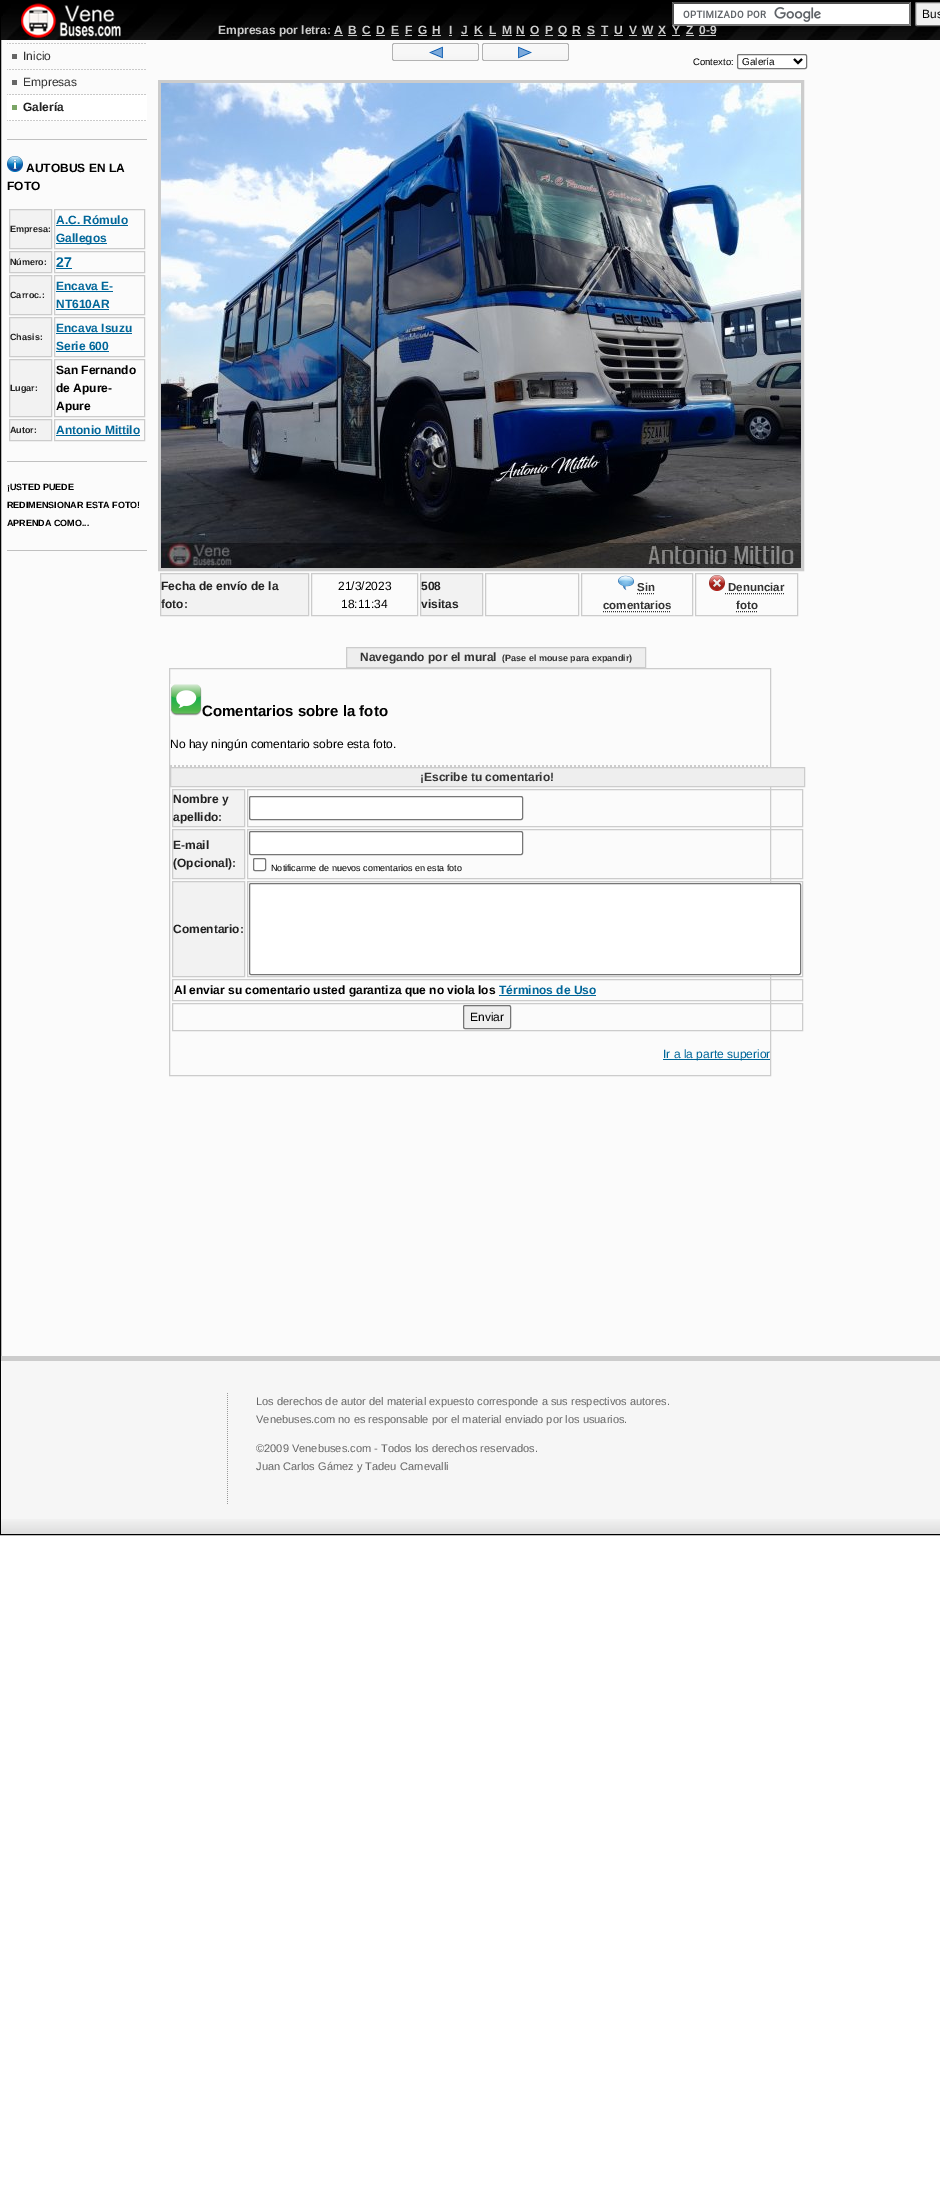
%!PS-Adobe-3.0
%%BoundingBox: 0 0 940 2198
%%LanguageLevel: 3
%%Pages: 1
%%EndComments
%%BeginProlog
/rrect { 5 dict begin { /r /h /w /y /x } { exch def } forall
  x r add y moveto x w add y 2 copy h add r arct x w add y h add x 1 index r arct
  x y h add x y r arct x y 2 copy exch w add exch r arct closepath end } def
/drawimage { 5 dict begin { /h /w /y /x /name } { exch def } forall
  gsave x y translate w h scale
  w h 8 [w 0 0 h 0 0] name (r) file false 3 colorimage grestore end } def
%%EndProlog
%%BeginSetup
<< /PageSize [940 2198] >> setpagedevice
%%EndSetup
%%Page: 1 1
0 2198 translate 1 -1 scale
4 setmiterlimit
1 setgray
0 0 940 2198 rectfill
0.984 setgray
1 40 939 1316 rectfill
0 setgray
0.5 -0.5 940 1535 rectstroke
(images/1.raw) 1 0 939 40 drawimage
(images/2.raw) 21 3 100 35 drawimage
1 setgray
672 2 239 24 rectfill
(images/3.raw) 683 7 138 15 drawimage
0.31 setgray
newpath 672 2 moveto 911 2 lineto 909 4 lineto 674 4 lineto closepath fill
0.463 setgray
newpath 911 2 moveto 911 26 lineto 909 24 lineto 909 4 lineto closepath fill
newpath 911 26 moveto 672 26 lineto 674 24 lineto 909 24 lineto closepath fill
0.31 setgray
newpath 672 26 moveto 672 2 lineto 674 4 lineto 674 24 lineto closepath fill
0.937 setgray
915.5 2.5 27 23 1.5 rrect gsave fill grestore
0.463 setgray
stroke
0.8 setgray
334 35 9 1 rectfill
348 35 9 1 rectfill
362 35 9 1 rectfill
376 35 9 1 rectfill
391 35 8 1 rectfill
405 35 7 1 rectfill
418 35 9 1 rectfill
432 35 9 1 rectfill
449 35 3 1 rectfill
461 35 7 1 rectfill
474 35 9 1 rectfill
489 35 7 1 rectfill
502 35 10 1 rectfill
516 35 9 1 rectfill
530 35 9 1 rectfill
545 35 8 1 rectfill
558 35 9 1 rectfill
572 35 9 1 rectfill
587 35 8 1 rectfill
601 35 7 1 rectfill
614 35 9 1 rectfill
629 35 8 1 rectfill
642 35 11 1 rectfill
658 35 8 1 rectfill
672 35 8 1 rectfill
686 35 8 1 rectfill
699 35 17 1 rectfill
0.753 setgray
7 139 140 1 rectfill
(images/4.raw) 7 43 139 1 drawimage
(images/4.raw) 7 69 139 1 drawimage
0.4 setgray
12 54 5 5 rectfill
(images/4.raw) 7 94 139 1 drawimage
12 80 5 5 rectfill
1 setgray
7 95 140 26 rectfill
(images/5.raw) 7 120 139 1 drawimage
0.482 0.647 0.4 setrgbcolor
12 105 5 5 rectfill
0.753 setgray
7 461 140 1 rectfill
(images/6.raw) 7 156 16 16 drawimage
0.949 setgray
newpath 9.5 209.5 moveto 51.5 209.5 lineto 51.5 248.5 lineto 9.5 248.5 lineto closepath gsave fill grestore
0.8 setgray
stroke
54.5 209.5 90 39 rectstroke
0 0.4 0.6 setrgbcolor
56 225 72 1 rectfill
56 243 51 1 rectfill
0.949 setgray
newpath 9.5 251.5 moveto 51.5 251.5 lineto 51.5 272.5 lineto 9.5 272.5 lineto closepath gsave fill grestore
0.8 setgray
stroke
54.5 251.5 90 21 rectstroke
0 0.4 0.6 setrgbcolor
56 268 16 1 rectfill
0.949 setgray
newpath 9.5 275.5 moveto 51.5 275.5 lineto 51.5 314.5 lineto 9.5 314.5 lineto closepath gsave fill grestore
0.8 setgray
stroke
54.5 275.5 90 39 rectstroke
0 0.4 0.6 setrgbcolor
56 291 57 1 rectfill
56 309 53 1 rectfill
0.949 setgray
newpath 9.5 317.5 moveto 51.5 317.5 lineto 51.5 356.5 lineto 9.5 356.5 lineto closepath gsave fill grestore
0.8 setgray
stroke
54.5 317.5 90 39 rectstroke
0 0.4 0.6 setrgbcolor
56 333 76 1 rectfill
56 351 53 1 rectfill
0.949 setgray
newpath 9.5 359.5 moveto 51.5 359.5 lineto 51.5 416.5 lineto 9.5 416.5 lineto closepath gsave fill grestore
0.8 setgray
stroke
54.5 359.5 90 57 rectstroke
0.949 setgray
newpath 9.5 419.5 moveto 51.5 419.5 lineto 51.5 440.5 lineto 9.5 440.5 lineto closepath gsave fill grestore
0.8 setgray
stroke
54.5 419.5 90 21 rectstroke
0 0.4 0.6 setrgbcolor
56 435 84 1 rectfill
0.753 setgray
7 550 140 1 rectfill
(images/7.raw) 392 43 87 18 drawimage
(images/8.raw) 482 43 87 18 drawimage
1 setgray
737.5 54.5 69 14 1.5 rrect gsave fill grestore
0.463 setgray
stroke
0 setgray
2 setlinewidth
newpath 794 59 moveto 798 63 lineto 802 59 lineto stroke
0.8 setgray
3 setlinewidth
159.5 81.5 643 488 rectstroke
(images/9.raw) 161 83 640 485 drawimage
0.949 setgray
newpath 160.5 573.5 moveto 308.5 573.5 lineto 308.5 615.5 lineto 160.5 615.5 lineto closepath gsave fill grestore
0.8 setgray
1 setlinewidth
stroke
311.5 573.5 106 42 rectstroke
0.949 setgray
newpath 420.5 573.5 moveto 482.5 573.5 lineto 482.5 615.5 lineto 420.5 615.5 lineto closepath gsave fill grestore
0.8 setgray
stroke
485.5 573.5 93 42 rectstroke
581.5 573.5 111 42 rectstroke
(images/10.raw) 618 575 16 16 drawimage
0.2 setgray
[1 1] 0 setdash
newpath 637 593.5 moveto 655 593.5 lineto stroke
newpath 603 611.5 moveto 671 611.5 lineto stroke
0.8 setgray
[] 0 setdash
695.5 573.5 102 42 rectstroke
(images/11.raw) 709 575 16 16 drawimage
0.2 setgray
[1 1] 0 setdash
newpath 725 593.5 moveto 784 593.5 lineto 736 611.5 moveto 757 611.5 lineto stroke
0.933 setgray
newpath 346.5 647.5 moveto 645.5 647.5 lineto 645.5 667.5 lineto 346.5 667.5 lineto closepath gsave fill grestore
0.8 setgray
[] 0 setdash
stroke
169.5 668.5 601 407 rectstroke
(images/12.raw) 170 684 32 32 drawimage
2 setlinewidth
[2 2] 0 setdash
newpath 170 766 moveto 770 766 lineto stroke
0.933 setgray
newpath 170.5 767.5 moveto 804.5 767.5 lineto 804.5 786.5 lineto 170.5 786.5 lineto closepath gsave fill grestore
0.8 setgray
1 setlinewidth
[] 0 setdash
stroke
0.949 setgray
newpath 172.5 789.5 moveto 244.5 789.5 lineto 244.5 826.5 lineto 172.5 826.5 lineto closepath gsave fill grestore
0.8 setgray
stroke
247.5 789.5 555 37 rectstroke
1 setgray
249.5 796.5 273 23 1.5 rrect gsave fill grestore
0.463 setgray
stroke
0.949 setgray
newpath 172.5 829.5 moveto 244.5 829.5 lineto 244.5 878.5 lineto 172.5 878.5 lineto closepath gsave fill grestore
0.8 setgray
stroke
247.5 829.5 555 49 rectstroke
1 setgray
249.5 831.5 273 23 1.5 rrect gsave fill grestore
0.463 setgray
stroke
1 setgray
253.5 858.5 12 12 1.5 rrect gsave fill grestore
0.463 setgray
stroke
0.949 setgray
newpath 172.5 881.5 moveto 244.5 881.5 lineto 244.5 976.5 lineto 172.5 976.5 lineto closepath gsave fill grestore
0.8 setgray
stroke
247.5 881.5 555 95 rectstroke
1 setgray
249.5 883.5 551 91 1.5 rrect gsave fill grestore
0.463 setgray
stroke
0.8 setgray
172.5 979.5 630 21 rectstroke
0 0.4 0.6 setrgbcolor
499 995 97 1 rectfill
0.8 setgray
172.5 1003.5 630 27 rectstroke
0.937 setgray
463.5 1005.5 47 23 1.5 rrect gsave fill grestore
0.463 setgray
stroke
0 0.4 0.6 setrgbcolor
663 1059 107 1 rectfill
0.965 setgray
1 1361 939 158 rectfill
(images/13.raw) 1 1519 939 15 drawimage
0.8 setgray
1 1356 939 5 rectfill
(images/14.raw) 227 1393 1 111 drawimage
/LiberationSans-Regular [12 0 0 -12 0 0] selectfont
0 setgray
922 18 moveto (Bus) show
/LiberationSans-Bold [12 0 0 -12 0 0] selectfont
0.8 setgray
218 34 moveto (Empresas por letra:) show
334 34 moveto (A) show
348 34 moveto (B) show
362 34 moveto (C) show
376 34 moveto (D) show
391 34 moveto (E) show
405 34 moveto (F) show
418 34 moveto (G) show
432 34 moveto (H) show
449 34 moveto (I) show
461 34 moveto (J) show
474 34 moveto (K) show
489 34 moveto (L) show
502 34 moveto (M) show
516 34 moveto (N) show
530 34 moveto (O) show
545 34 moveto (P) show
558 34 moveto (Q) show
572 34 moveto (R) show
587 34 moveto (S) show
601 34 moveto (T) show
614 34 moveto (U) show
629 34 moveto (V) show
642 34 moveto (W) show
658 34 moveto (X) show
672 34 moveto (Y) show
686 34 moveto (Z) show
699 34 moveto (0-9) show
/LiberationSans-Regular [12 0 0 -12 0 0] selectfont
0.2 setgray
23 60 moveto (Inicio) show
23 86 moveto (Empresas) show
/LiberationSans-Bold [12 0 0 -12 0 0] selectfont
0.133 setgray
23 111 moveto (Galería) show
0 setgray
26 172 moveto (AUTOBUS EN LA) show
7 190 moveto (FOTO) show
/LiberationSans-Bold [9 0 0 -9 0 0] selectfont
0.133 setgray
10 232 moveto (Empresa:) show
/LiberationSans-Bold [12 0 0 -12 0 0] selectfont
0 0.4 0.6 setrgbcolor
56 224 moveto (A.C. Rómulo) show
56 242 moveto (Gallegos) show
/LiberationSans-Bold [9 0 0 -9 0 0] selectfont
0.133 setgray
10 265 moveto (Número:) show
/LiberationSans-Bold [14 0 0 -14 0 0] selectfont
0 0.4 0.6 setrgbcolor
56 267 moveto (27) show
/LiberationSans-Bold [9 0 0 -9 0 0] selectfont
0.133 setgray
10 298 moveto (Carroc.:) show
/LiberationSans-Bold [12 0 0 -12 0 0] selectfont
0 0.4 0.6 setrgbcolor
56 290 moveto (Encava E-) show
56 308 moveto (NT610AR) show
/LiberationSans-Bold [9 0 0 -9 0 0] selectfont
0.133 setgray
10 340 moveto (Chasis:) show
/LiberationSans-Bold [12 0 0 -12 0 0] selectfont
0 0.4 0.6 setrgbcolor
56 332 moveto (Encava Isuzu) show
56 350 moveto (Serie 600) show
/LiberationSans-Bold [9 0 0 -9 0 0] selectfont
0.133 setgray
10 391 moveto (Lugar:) show
/LiberationSans-Bold [12 0 0 -12 0 0] selectfont
0 setgray
56 374 moveto (San Fernando) show
56 392 moveto (de Apure-) show
56 410 moveto (Apure) show
/LiberationSans-Bold [9 0 0 -9 0 0] selectfont
0.133 setgray
10 433 moveto (Autor:) show
/LiberationSans-Bold [12 0 0 -12 0 0] selectfont
0 0.4 0.6 setrgbcolor
56 434 moveto (Antonio Mittilo) show
/LiberationSans-Bold [9 0 0 -9 0 0] selectfont
0 setgray
7 490 moveto (¡USTED PUEDE) show
7 508 moveto (REDIMENSIONAR ESTA FOTO!) show
7 526 moveto (APRENDA COMO...) show
/LiberationSans-Regular [9.5 0 0 -9.5 0 0] selectfont
693 65 moveto (Contexto:) show
/LiberationSans-Regular [10 0 0 -10 0 0] selectfont
742 65 moveto (Galería) show
/LiberationSans-Bold [12 0 0 -12 0 0] selectfont
0.133 setgray
161 590 moveto (Fecha de envío de la) show
161 608 moveto (foto:) show
/LiberationSans-Regular [12 0 0 -12 0 0] selectfont
0 setgray
338 590 moveto (21/3/2023) show
341 608 moveto (18:11:34) show
/LiberationSans-Bold [12 0 0 -12 0 0] selectfont
0.133 setgray
421 590 moveto (508) show
421 608 moveto (visitas) show
/LiberationSans-Bold [11.5 0 0 -11.5 0 0] selectfont
0.2 setgray
637 591 moveto (Sin) show
603 609 moveto (comentarios) show
728 591 moveto (Denunciar) show
736 609 moveto (foto) show
/LiberationSans-Bold [12 0 0 -12 0 0] selectfont
360 661 moveto (Navegando por el mural) show
/LiberationSans-Bold [9 0 0 -9 0 0] selectfont
502 661 moveto (\(Pase el mouse para expandir\)) show
/LiberationSans-Bold [15 0 0 -15 0 0] selectfont
0 setgray
202 716 moveto (Comentarios sobre la foto) show
/LiberationSans-Regular [12 0 0 -12 0 0] selectfont
170 748 moveto (No hay ningún comentario sobre esta foto.) show
/LiberationSans-Bold [12 0 0 -12 0 0] selectfont
0.2 setgray
420 781 moveto (¡Escribe tu comentario!) show
0.133 setgray
173 803 moveto (Nombre y) show
173 821 moveto (apellido:) show
173 849 moveto (E-mail) show
173 867 moveto (\(Opcional\):) show
/LiberationSans-Regular [9 0 0 -9 0 0] selectfont
0 setgray
271 871 moveto (Notificarme de nuevos comentarios en esta foto) show
/LiberationSans-Bold [12 0 0 -12 0 0] selectfont
0.133 setgray
173 933 moveto (Comentario:) show
0 setgray
174 994 moveto (Al enviar su comentario usted garantiza que no viola los) show
0 0.4 0.6 setrgbcolor
499 994 moveto (Términos de Uso) show
/LiberationSans-Regular [12 0 0 -12 0 0] selectfont
0 setgray
470 1021 moveto (Enviar) show
0 0.4 0.6 setrgbcolor
663 1058 moveto (Ir a la parte superior) show
/LiberationSans-Regular [11.05 0 0 -11.05 0 0] selectfont
0.4 setgray
256 1405 moveto (Los derechos de autor del material expuesto corresponde a sus respectivos autores.) show
256 1423 moveto (Venebuses.com no es responsable por el material enviado por los usuarios.) show
256 1452 moveto (©2009 Venebuses.com - Todos los derechos reservados.) show
256 1470 moveto (Juan Carlos Gámez y Tadeu Carnevalli) show
showpage
%%EOF
